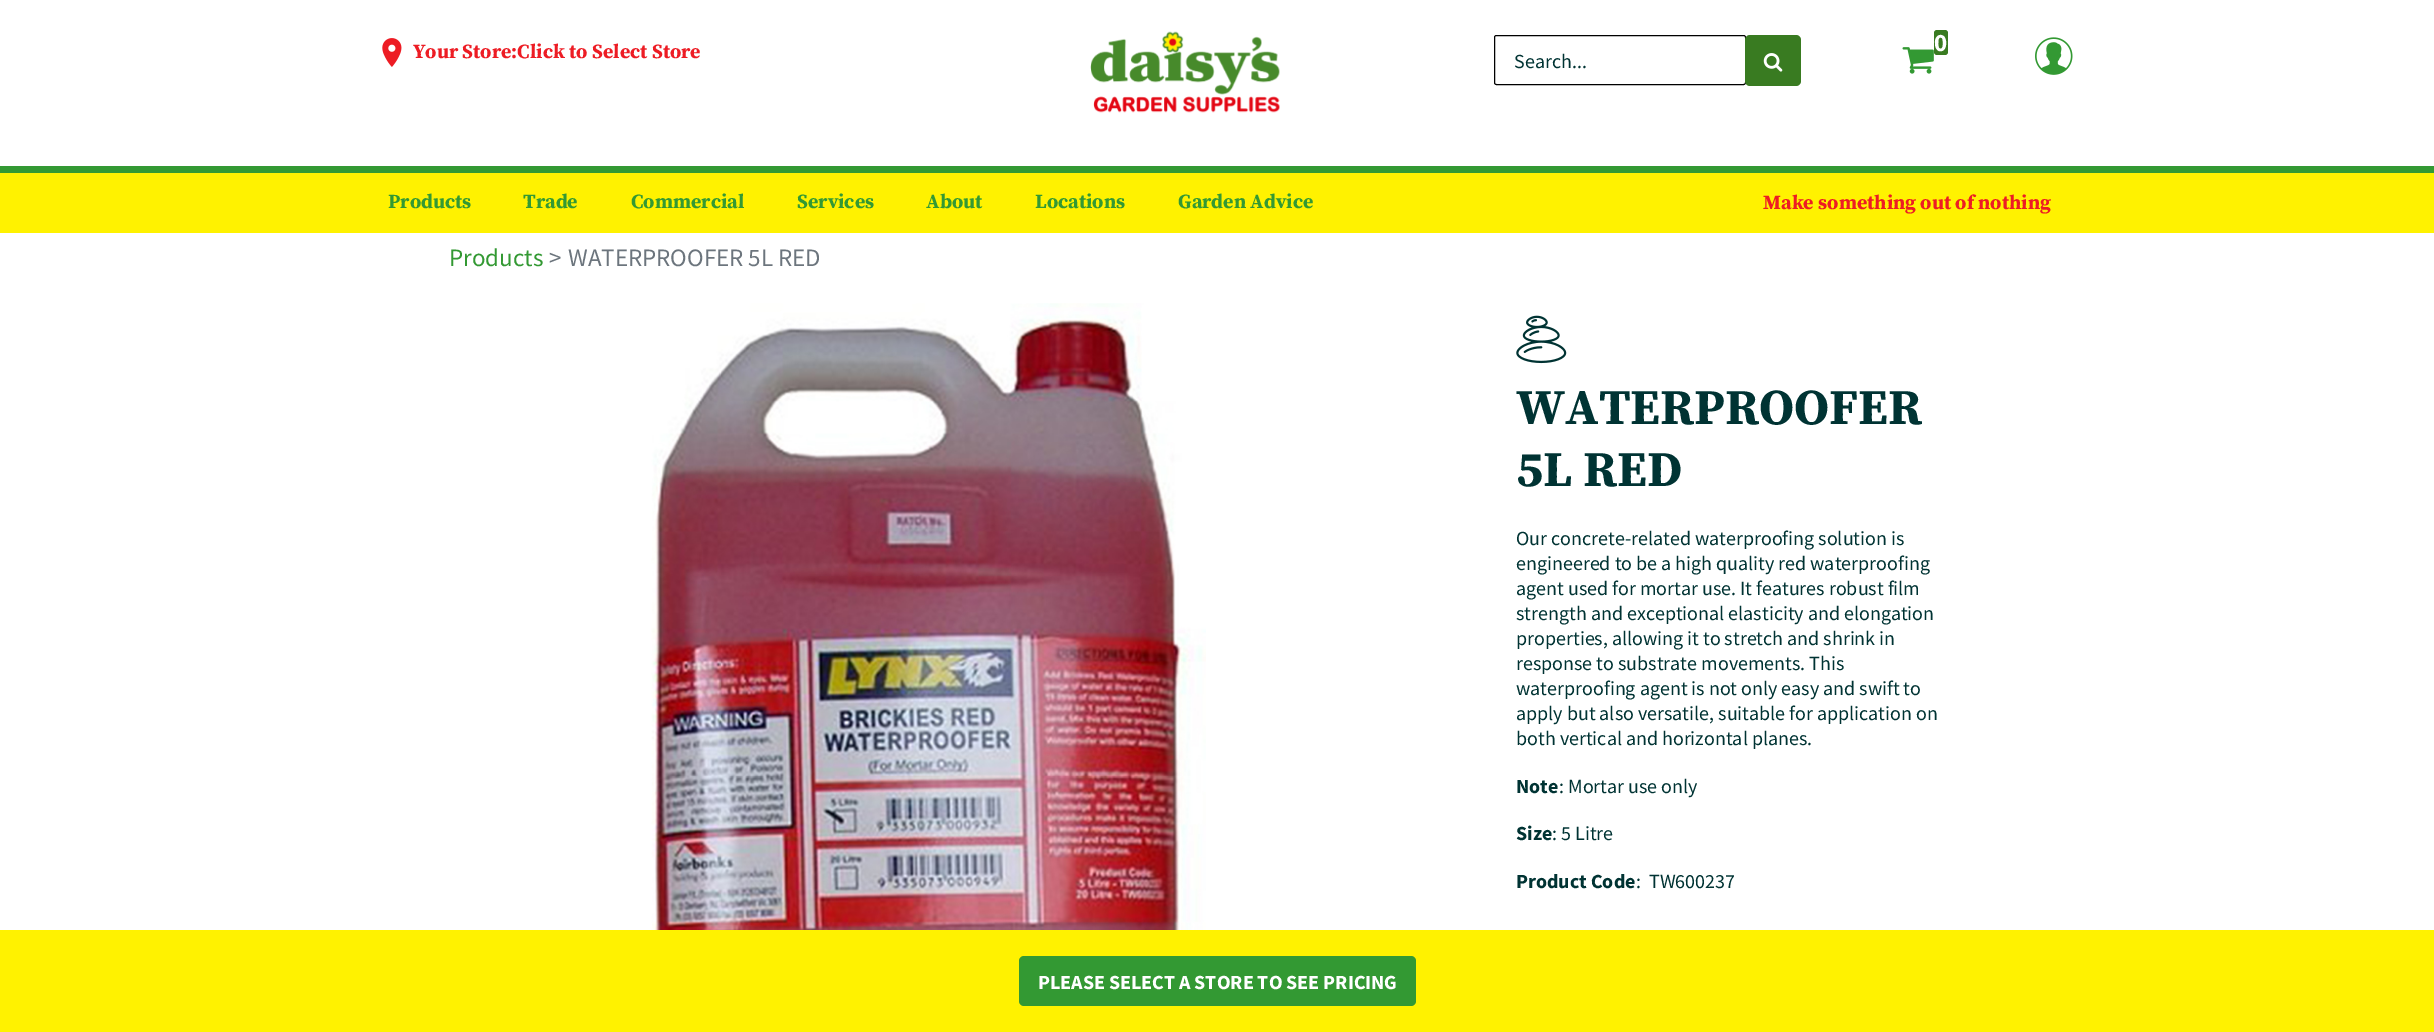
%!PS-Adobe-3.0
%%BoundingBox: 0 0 2434 1032
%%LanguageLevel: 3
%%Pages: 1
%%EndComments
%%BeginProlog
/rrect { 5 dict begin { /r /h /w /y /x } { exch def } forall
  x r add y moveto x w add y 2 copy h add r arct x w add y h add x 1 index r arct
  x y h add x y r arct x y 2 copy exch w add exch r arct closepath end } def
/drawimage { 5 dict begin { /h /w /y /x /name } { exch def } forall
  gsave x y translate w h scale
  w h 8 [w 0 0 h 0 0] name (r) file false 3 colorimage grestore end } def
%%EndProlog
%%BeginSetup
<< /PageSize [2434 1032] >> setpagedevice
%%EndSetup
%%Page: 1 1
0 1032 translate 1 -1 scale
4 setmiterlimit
1 setgray
0 0 2434 1032 rectfill
(images/1.raw) 1090 31 190 82 drawimage
0 setgray
1494.5 35.5 251 49 2 rrect stroke
0.224 0.482 0.129 setrgbcolor
1745 35 56 51 5 rrect fill
(images/2.raw) 1763 53 20 19 drawimage
1934 30 14 25 3 rrect fill
(images/3.raw) 1902 47 32 27 drawimage
(images/4.raw) 2035 37 38 38 drawimage
0.2 0.6 0.2 setrgbcolor
0 166 2434 7 rectfill
(images/5.raw) 382 38 20 29 drawimage
1 0.949 0 setrgbcolor
0 173 2434 60 rectfill
(images/6.raw) 651 303 555 627 drawimage
(images/7.raw) 1516 315 51 49 drawimage
0 930 2434 102 rectfill
0.2 0.6 0.2 setrgbcolor
1019 956 397 50 5 rrect fill
/SourceSansPro-Regular [20 0 0 -20 0 0] selectfont
0 0.2 0.2 setrgbcolor
1514 68 moveto (Search...) show
/SourceSansPro-Bold [25 0 0 -25 0 0] selectfont
1 setgray
1934 51 moveto (0) show
/SourceSerifPro-Bold [20 0 0 -20 0 0] selectfont
0.929 0.11 0.141 setrgbcolor
413 58 moveto (Your Store:Click to Select Store) show
0.2 0.6 0.2 setrgbcolor
388 208 moveto (Products) show
523 208 moveto (Trade) show
631 208 moveto (Commercial) show
797 208 moveto (Services) show
926 208 moveto (About) show
1035 208 moveto (Locations) show
1178 208 moveto (Garden Advice) show
0.929 0.11 0.141 setrgbcolor
1763 209 moveto (Make something out of nothing) show
/SourceSansPro-Regular [25 0 0 -25 0 0] selectfont
0.2 0.6 0.2 setrgbcolor
449 266 moveto (Products) show
0.424 0.459 0.49 setrgbcolor
549 266 moveto (>) show
568 266 moveto (WATERPROOFER 5L RED) show
/SourceSerifPro-Bold [50 0 0 -50 0 0] selectfont
0 0.2 0.2 setrgbcolor
1516 424 moveto (WATERPROOFER) show
1516 486 moveto (5L RED) show
/SourceSansPro-Regular [20 0 0 -20 0 0] selectfont
1516 545 moveto (Our concrete-related waterproofing solution is) show
1516 570 moveto (engineered to be a high quality red waterproofing) show
1516 595 moveto (agent used for mortar use. It features robust film) show
1516 620 moveto (strength and exceptional elasticity and elongation) show
1516 645 moveto (properties, allowing it to stretch and shrink in) show
1516 670 moveto (response to substrate movements. This) show
1516 695 moveto (waterproofing agent is not only easy and swift to) show
1516 720 moveto (apply but also versatile, suitable for application on) show
1516 745 moveto (both vertical and horizontal planes.) show
/SourceSansPro-Bold [20 0 0 -20 0 0] selectfont
1516 793 moveto (Note) show
/SourceSansPro-Regular [20 0 0 -20 0 0] selectfont
1559 793 moveto (: Mortar use only) show
/SourceSansPro-Bold [20 0 0 -20 0 0] selectfont
1516 840 moveto (Size) show
/SourceSansPro-Regular [20 0 0 -20 0 0] selectfont
1552 840 moveto (: 5 Litre) show
/SourceSansPro-Bold [20 0 0 -20 0 0] selectfont
1516 888 moveto (Product Code) show
/SourceSansPro-Regular [20 0 0 -20 0 0] selectfont
1636 888 moveto (:  TW600237) show
/SourceSansPro-Bold [20 0 0 -20 0 0] selectfont
1 setgray
1038 989 moveto (PLEASE SELECT A STORE TO SEE PRICING) show
showpage
%%EOF
